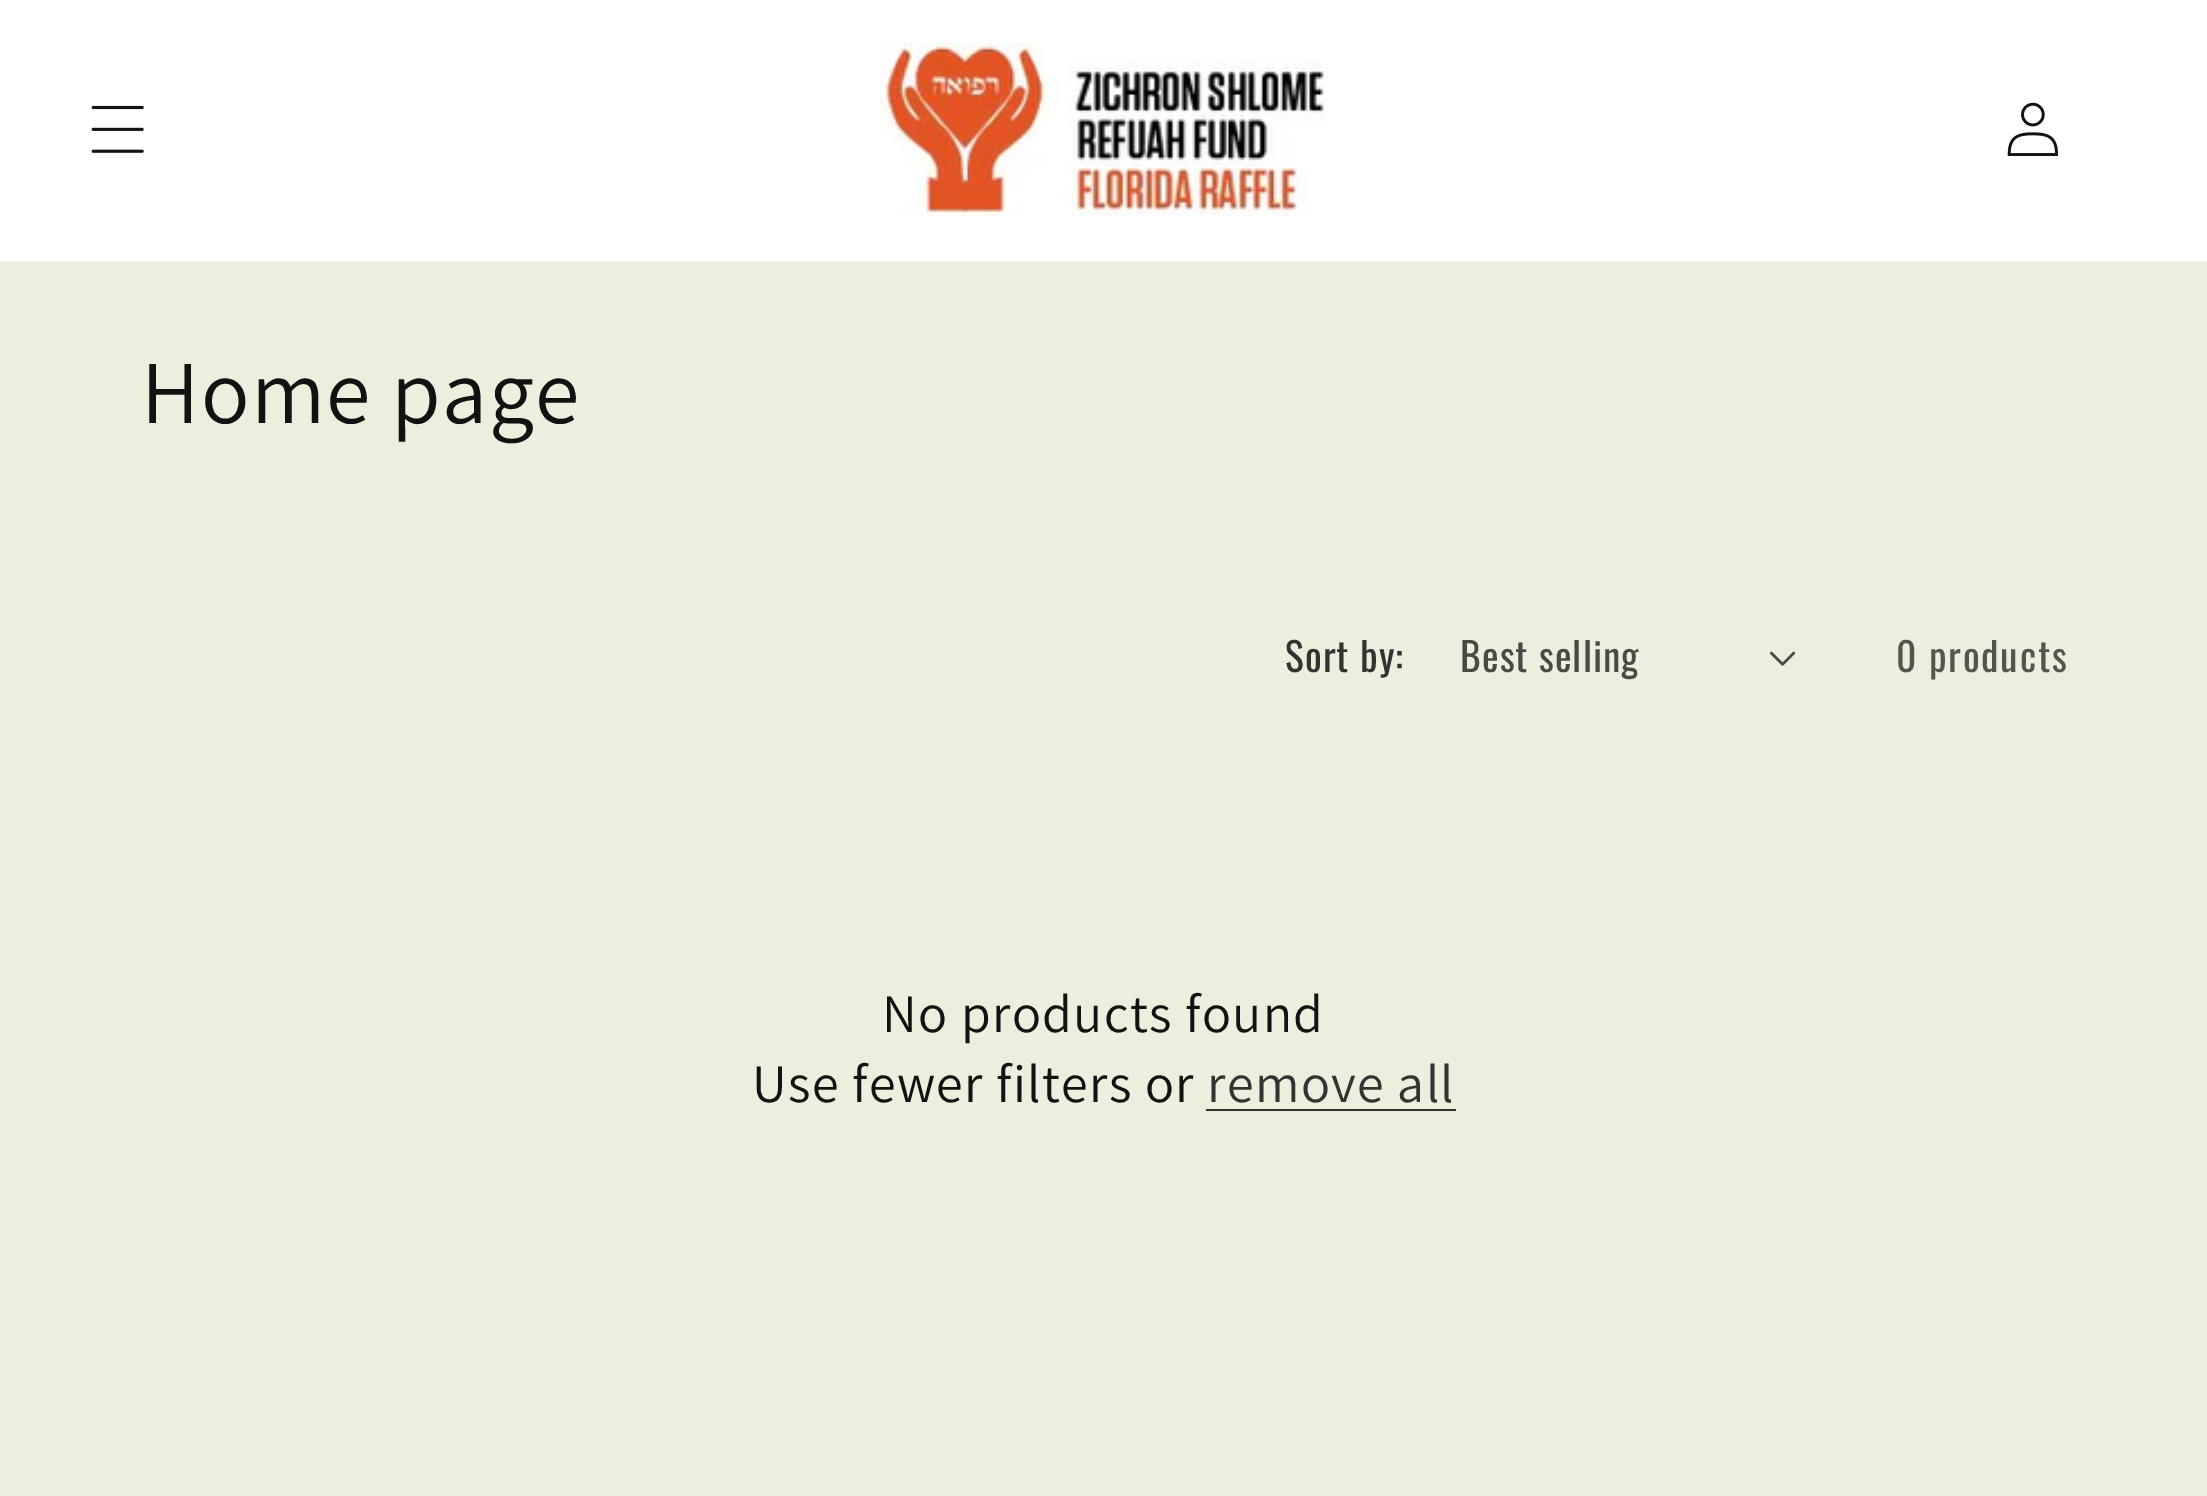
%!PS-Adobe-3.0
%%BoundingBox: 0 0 2207 1496
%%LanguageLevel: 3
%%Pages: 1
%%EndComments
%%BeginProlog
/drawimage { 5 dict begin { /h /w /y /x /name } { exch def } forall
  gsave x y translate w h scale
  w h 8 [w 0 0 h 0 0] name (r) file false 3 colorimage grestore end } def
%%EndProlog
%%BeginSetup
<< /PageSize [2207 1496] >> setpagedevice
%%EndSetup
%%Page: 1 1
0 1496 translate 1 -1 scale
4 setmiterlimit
0.922 0.941 0.871 setrgbcolor
0 0 2207 1496 rectfill
1 setgray
0 0 2207 261 rectfill
(images/1.raw) 91 105 53 48 drawimage
(images/2.raw) 880 42 447 174 drawimage
(images/3.raw) 2007 102 52 54 drawimage
(images/4.raw) 1769 651 27 15 drawimage
0.2 0.2 0.192 setrgbcolor
1206 1109 250 2 rectfill
/Assistant-Regular [90 0 0 -90 0 0] selectfont
0.071 setgray
141 423 moveto 1.35 0 (Home page) ashow
/Oswald-Regular [39.5 0 0 -39.5 0 0] selectfont
0.2 0.2 0.192 setrgbcolor
1285 672 moveto 1.1 0 (Sort by:) ashow
0.282 0.29 0.271 setrgbcolor
1460 672 moveto 1.1 0 (Best selling) ashow
0.325 0.333 0.31 setrgbcolor
1896 672 moveto 1.75 0 (0 products) ashow
/Assistant-Regular [54 0 0 -54 0 0] selectfont
0.071 setgray
882 1032 moveto 1.35 0 (No products found) ashow
752 1102 moveto 1.35 0 (Use fewer filters or) ashow
0.2 0.2 0.192 setrgbcolor
1207 1102 moveto 1.35 0 (remove all) ashow
showpage
%%EOF
